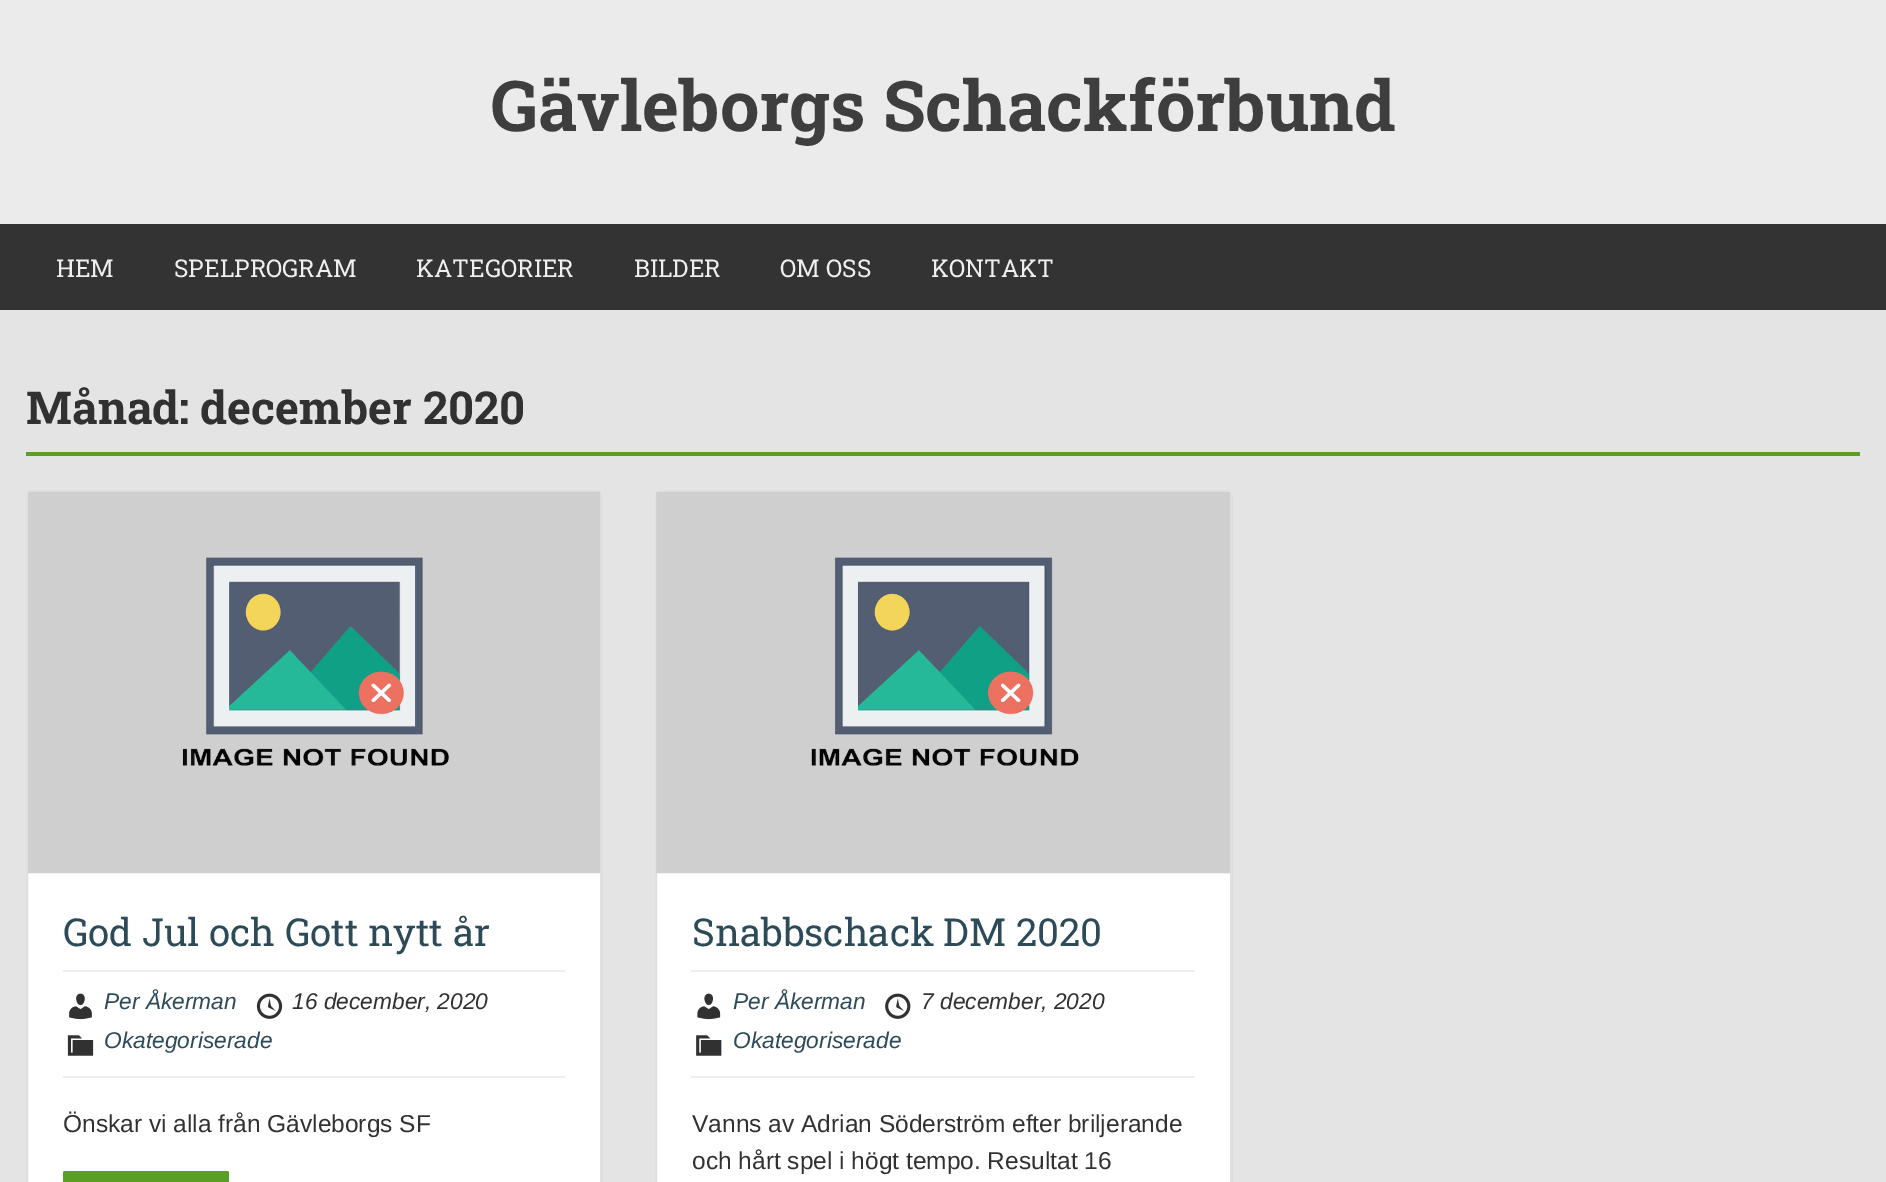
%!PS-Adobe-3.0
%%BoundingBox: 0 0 1886 1182
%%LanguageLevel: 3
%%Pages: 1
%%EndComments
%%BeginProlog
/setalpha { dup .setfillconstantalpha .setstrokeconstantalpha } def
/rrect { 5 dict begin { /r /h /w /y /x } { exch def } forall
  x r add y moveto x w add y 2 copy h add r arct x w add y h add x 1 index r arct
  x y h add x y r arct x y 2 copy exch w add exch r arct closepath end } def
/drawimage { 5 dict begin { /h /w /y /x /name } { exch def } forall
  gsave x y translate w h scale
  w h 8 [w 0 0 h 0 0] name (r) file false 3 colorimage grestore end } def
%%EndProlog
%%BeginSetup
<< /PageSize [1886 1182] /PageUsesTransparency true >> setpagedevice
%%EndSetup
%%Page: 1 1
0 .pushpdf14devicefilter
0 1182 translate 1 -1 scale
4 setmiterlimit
0.898 0.894 0.898 setrgbcolor
0 0 1886 1182 rectfill
0.922 setgray
0 0 1886 224 rectfill
0.2 setgray
0 224 1886 86 rectfill
0.353 0.62 0.145 setrgbcolor
26 452 1834 4 rectfill
1 setgray
26 490 576 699 7 rrect fill
0.12 setalpha
0 setgray
2 setlinewidth
27 491 574 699 6 rrect stroke
1 setalpha
(images/1.raw) 28 491 573 383 drawimage
0.933 setgray
63 970 502 2 rectfill
63 1076 502 2 rectfill
(images/2.raw) 69 993 23 27 drawimage
(images/3.raw) 256 993 27 26 drawimage
(images/4.raw) 67 1035 27 21 drawimage
0.353 0.62 0.145 setrgbcolor
63 1171 166 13 2 rrect fill
1 setgray
655 490 577 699 7 rrect fill
0.12 setalpha
0 setgray
656 491 575 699 6 rrect stroke
1 setalpha
(images/5.raw) 656 491 575 383 drawimage
0.933 setgray
691 970 504 2 rectfill
691 1076 504 2 rectfill
(images/6.raw) 697 993 24 27 drawimage
(images/7.raw) 885 993 26 26 drawimage
(images/8.raw) 696 1035 26 21 drawimage
/RobotoSlab-Bold [70 0 0 -70 0 0] selectfont
0.243 setgray
491 131 moveto (Gävleborgs Schackförbund) show
/RobotoSlab-Regular [24.5 0 0 -24.5 0 0] selectfont
0.937 setgray
56 277 moveto (HEM) show
174 277 moveto (SPELPROGRAM) show
416 277 moveto (KATEGORIER) show
634 277 moveto (BILDER) show
780 277 moveto (OM OSS) show
931 277 moveto (KONTAKT) show
/RobotoSlab-Bold [45.5 0 0 -45.5 0 0] selectfont
0.192 setgray
26 424 moveto (Månad: december 2020) show
/RobotoSlab-Regular [38.5 0 0 -38.5 0 0] selectfont
0.173 0.29 0.345 setrgbcolor
63 946 moveto (God Jul och Gott nytt år) show
/LiberationSans-Italic [22.75 0 0 -22.75 0 0] selectfont
104 1009 moveto (Per Åkerman) show
0.192 setgray
292 1009 moveto (16 december, 2020) show
0.173 0.29 0.345 setrgbcolor
104 1048 moveto (Okategoriserade) show
/LiberationSans-Regular [24.5 0 0 -24.5 0 0] selectfont
0.192 setgray
63 1132 moveto (Önskar vi alla från Gävleborgs SF) show
/RobotoSlab-Regular [38.5 0 0 -38.5 0 0] selectfont
0.173 0.29 0.345 setrgbcolor
692 946 moveto (Snabbschack DM 2020) show
/LiberationSans-Italic [22.75 0 0 -22.75 0 0] selectfont
733 1009 moveto (Per Åkerman) show
0.192 setgray
921 1009 moveto (7 december, 2020) show
0.173 0.29 0.345 setrgbcolor
733 1048 moveto (Okategoriserade) show
/LiberationSans-Regular [24.5 0 0 -24.5 0 0] selectfont
0.192 setgray
692 1132 moveto (Vanns av Adrian Söderström efter briljerande) show
692 1169 moveto (och hårt spel i högt tempo. Resultat 16) show
.poppdf14devicefilter showpage
%%EOF
